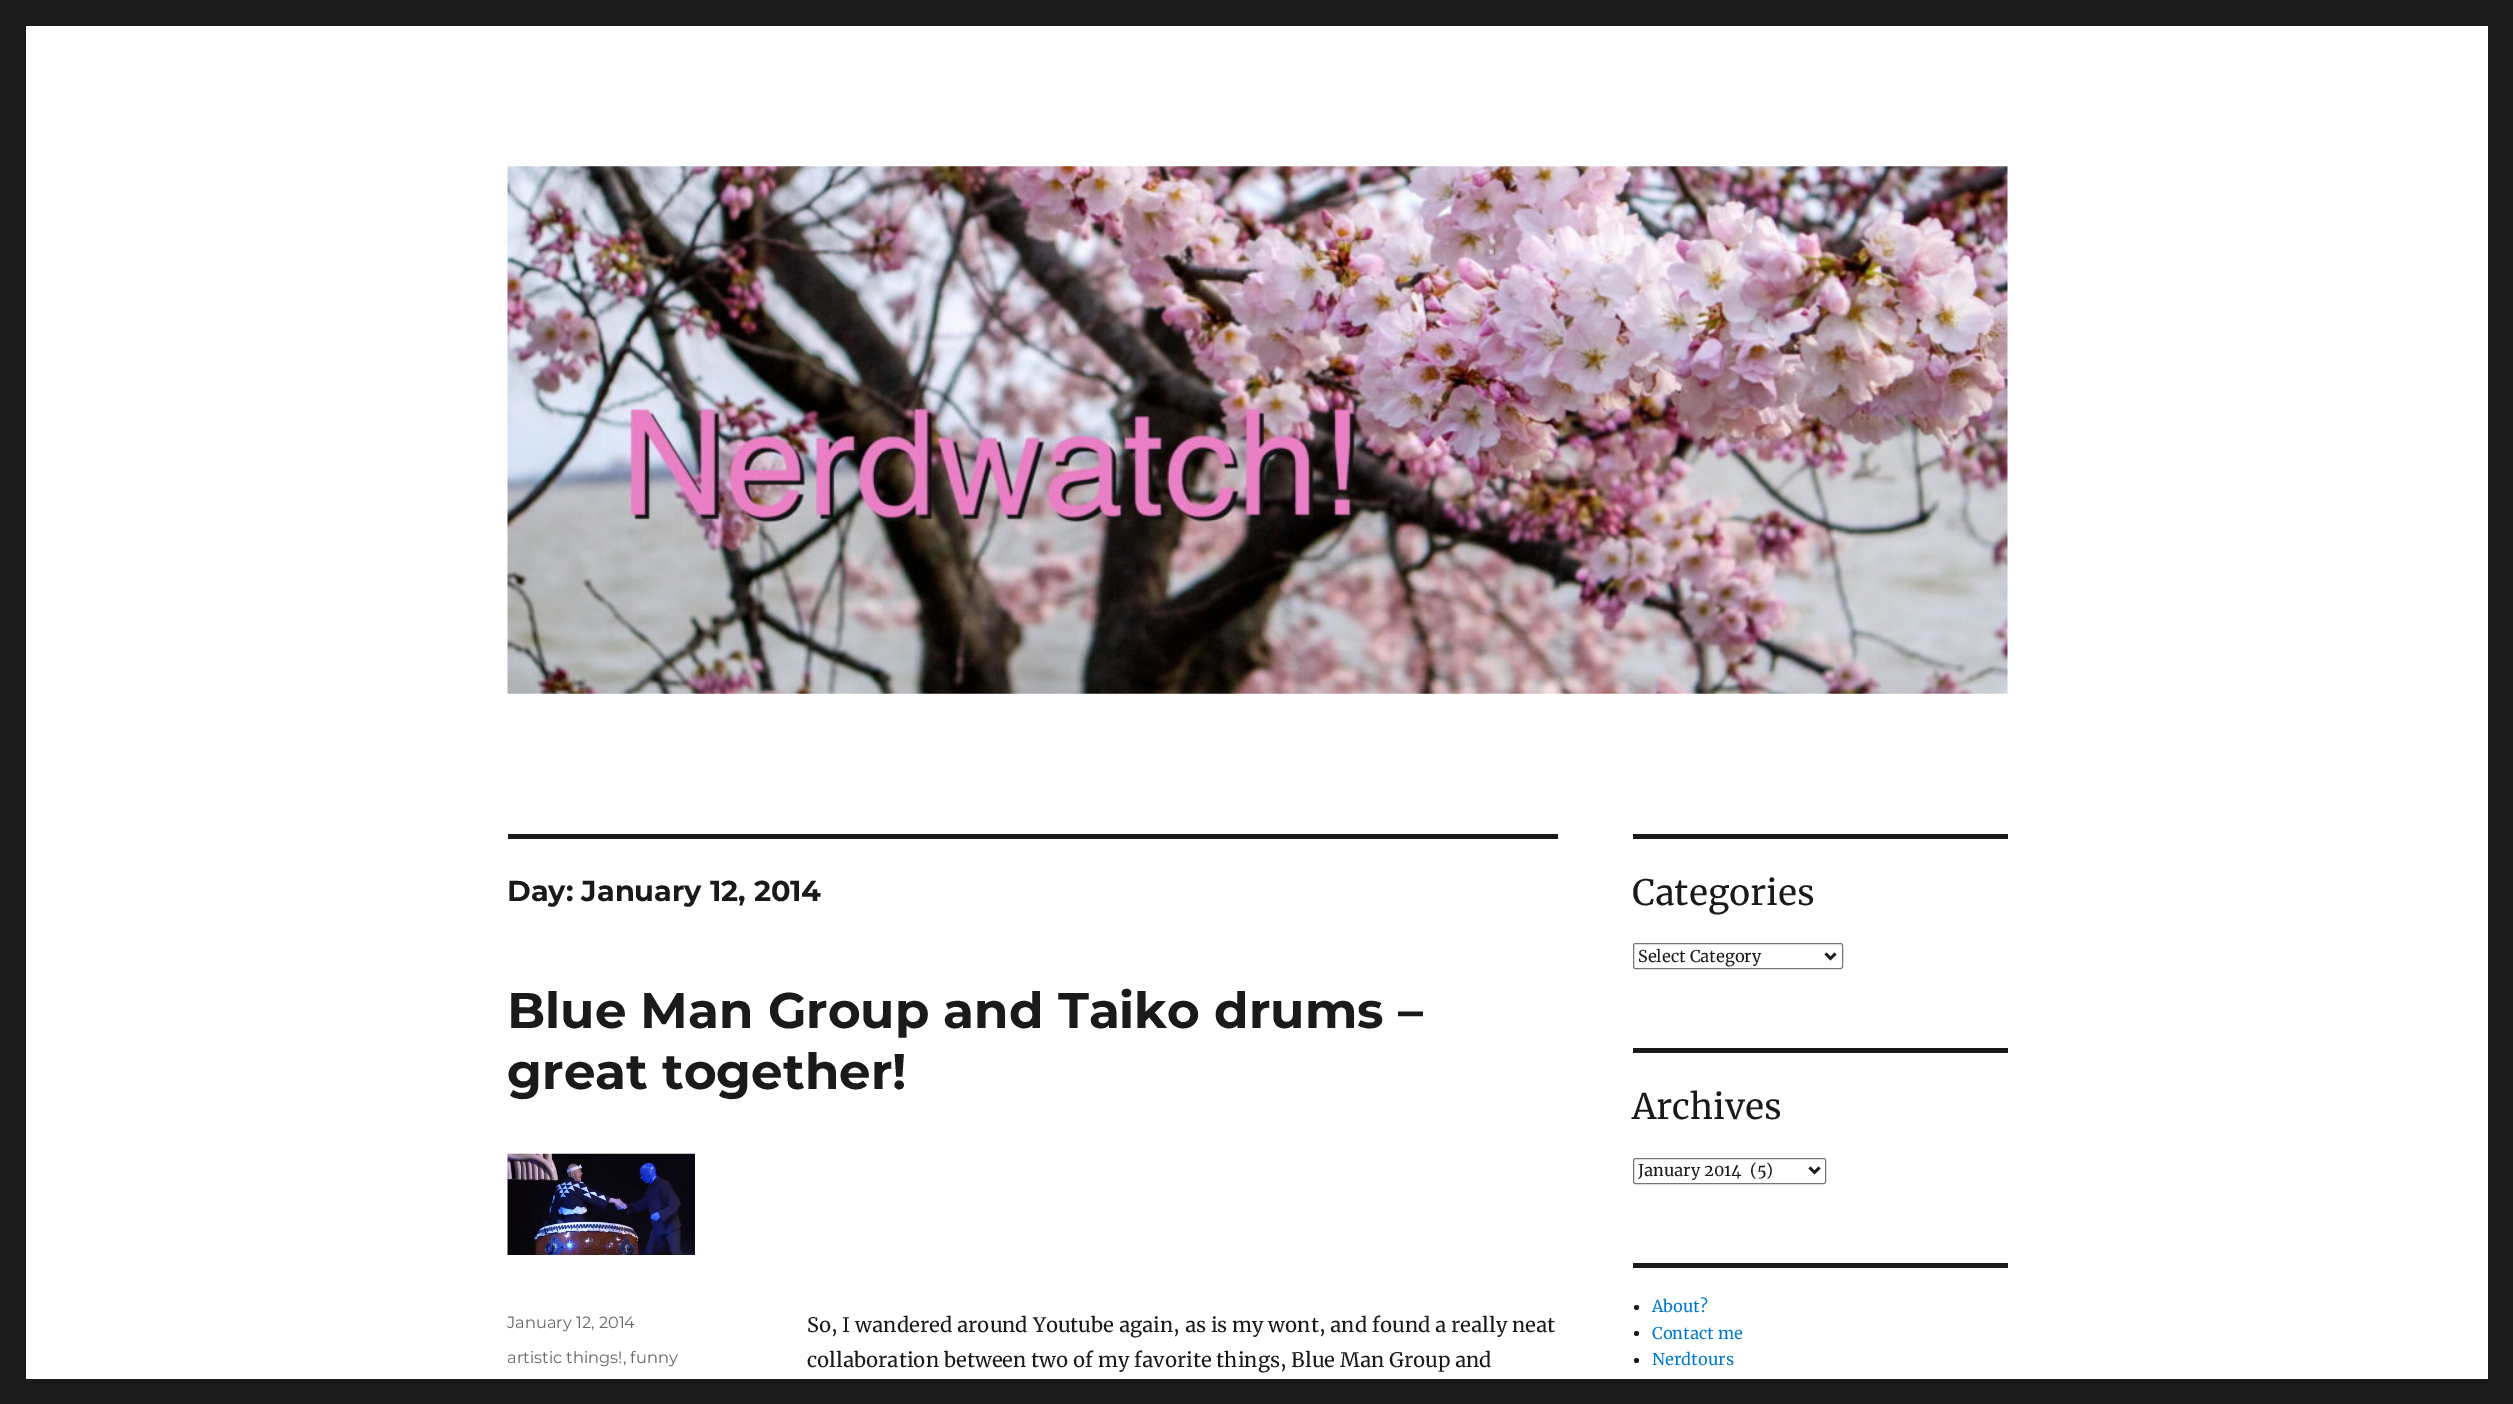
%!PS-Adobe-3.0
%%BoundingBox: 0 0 2513 1404
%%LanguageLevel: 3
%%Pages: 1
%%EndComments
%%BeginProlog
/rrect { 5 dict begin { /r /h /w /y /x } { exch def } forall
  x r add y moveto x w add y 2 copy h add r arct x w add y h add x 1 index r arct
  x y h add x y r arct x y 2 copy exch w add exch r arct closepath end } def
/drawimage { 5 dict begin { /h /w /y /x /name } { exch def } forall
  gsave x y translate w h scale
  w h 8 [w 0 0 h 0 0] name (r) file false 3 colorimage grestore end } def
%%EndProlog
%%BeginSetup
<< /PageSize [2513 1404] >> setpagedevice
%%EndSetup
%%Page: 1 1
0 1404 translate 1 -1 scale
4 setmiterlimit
0.102 setgray
0 0 2513 1404 rectfill
1 setgray
26 26 2462 1353 rectfill
(images/1.raw) 507 166 1501 528 drawimage
0.102 setgray
508 834 1050 5 rectfill
(images/2.raw) 507 1153 188 102 drawimage
1633 834 375 5 rectfill
0.463 setgray
1633.5 943.5 209 25 2 rrect stroke
0.102 setgray
2.5 setlinewidth
newpath 1825.5 953.5 moveto 1830.5 958.5 lineto 1835.5 953.5 lineto stroke
1633 1048 375 5 rectfill
0.463 setgray
1 setlinewidth
1633.5 1158.5 192 25 2 rrect stroke
0.102 setgray
2.5 setlinewidth
newpath 1809.5 1167.5 moveto 1814.5 1172.5 lineto 1819.5 1167.5 lineto stroke
1633 1263 375 5 rectfill
newpath 1636.5 1307.5 2.5 0 360 arc closepath fill
newpath 1636.5 1333.5 2.5 0 360 arc closepath fill
newpath 1636.5 1360.5 2.5 0 360 arc closepath fill
/Montserrat-Thin [28.75 0 0 -28.75 0 0] selectfont
507 901 moveto (Day: January 12, 2014) show
/Montserrat-Thin [50 0 0 -50 0 0] selectfont
507 1028 moveto (Blue Man Group and Taiko drums –) show
507 1089 moveto (great together!) show
/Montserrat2-Thin [16.25 0 0 -16.25 0 0] selectfont
0.408 setgray
507 1328 moveto (January 12, 2014) show
507 1363 moveto (artistic things!, funny) show
/Merriweather-Regular [20 0 0 -20 0 0] selectfont
0.102 setgray
807 1332 moveto (So, I wandered around Youtube again, as is my wont, and found a really neat) show
807 1367 moveto (collaboration between two of my favorite things, Blue Man Group and) show
/Merriweather-Regular [35 0 0 -35 0 0] selectfont
1632 905 moveto (Categories) show
/Merriweather-Regular [16.25 0 0 -16.25 0 0] selectfont
1638 962 moveto (Select Category) show
/Merriweather-Regular [35 0 0 -35 0 0] selectfont
1632 1119 moveto (Archives) show
/Merriweather-Regular [16.25 0 0 -16.25 0 0] selectfont
1638 1176 moveto (January 2014  \(5\)) show
0 0.478 0.8 setrgbcolor
1652 1312 moveto (About?) show
1652 1339 moveto (Contact me) show
1652 1365 moveto (Nerdtours) show
showpage
%%EOF
